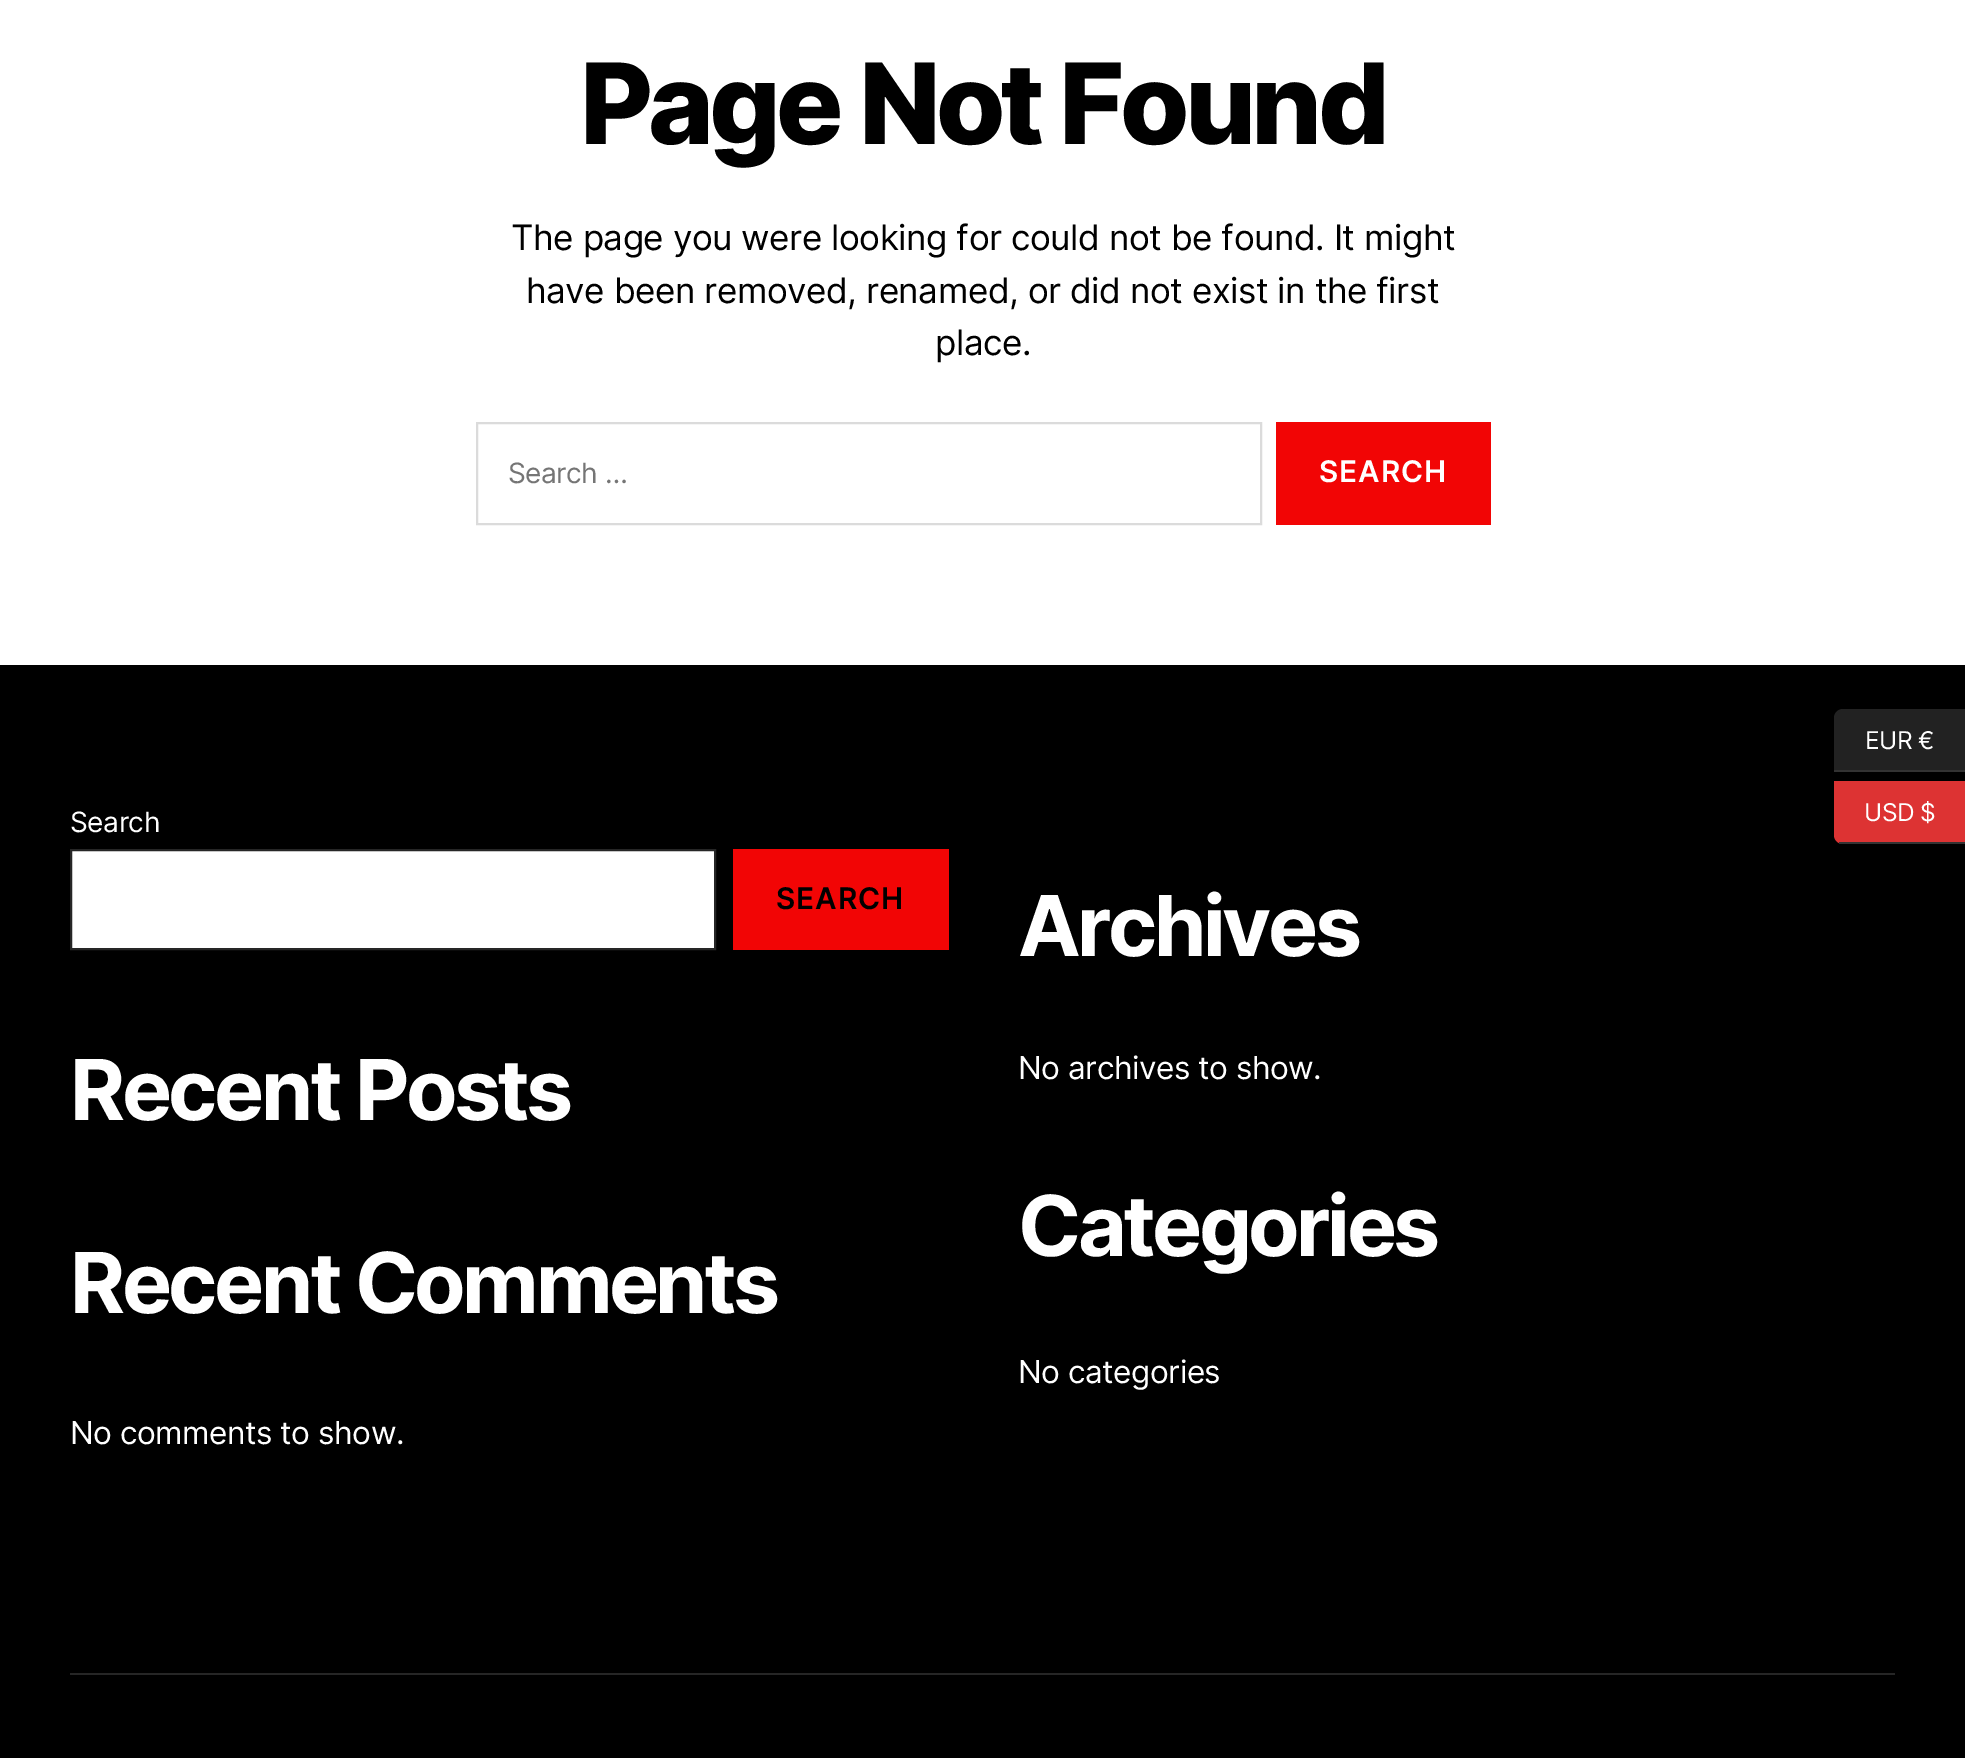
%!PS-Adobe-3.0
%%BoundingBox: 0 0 1965 1758
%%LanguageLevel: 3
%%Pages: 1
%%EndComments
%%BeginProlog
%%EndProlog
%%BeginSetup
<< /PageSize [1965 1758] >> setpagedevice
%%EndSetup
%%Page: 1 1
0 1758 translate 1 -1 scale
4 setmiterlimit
1 setgray
0 0 1965 1758 rectfill
0.859 setgray
2 setlinewidth
477 423 784 101 rectstroke
0.949 0.02 0.02 setrgbcolor
1276 422 215 103 rectfill
0 setgray
0 665 1965 1093 rectfill
0.133 setgray
newpath 1843 709 moveto 1965 709 lineto 1965 772 lineto 1834 772 lineto 1834 718 lineto 1834 713 1838 709 1843 709 curveto closepath fill
0.2 setgray
1834 770 131 2 rectfill
0.867 0.2 0.2 setrgbcolor
newpath 1834 781 moveto 1965 781 lineto 1965 844 lineto 1843 844 lineto 1838 844 1834 840 1834 835 curveto closepath fill
0.2 setgray
1839 842 126 2 rectfill
0.149 setgray
70 1673 1825 2 rectfill
1 setgray
newpath 71 850 moveto 715 850 lineto 715 949 lineto 71 949 lineto closepath gsave fill grestore
0.149 setgray
stroke
0.949 0.02 0.02 setrgbcolor
733 849 216 101 rectfill
/Inter-ExtraBold [112 0 0 -112 0 0] selectfont
0 setgray
580 144 moveto -4.7 0 (Page Not Found) ashow
/Inter-Regular [35 0 0 -35 0 0] selectfont
511 250 moveto -0.47 0 (The page you were looking for could not be found. It might) ashow
526 303 moveto -0.47 0 (have been removed, renamed, or did not exist in the first) ashow
935 355 moveto -0.47 0 (place.) ashow
/Inter-Regular [28 0 0 -28 0 0] selectfont
0.459 setgray
508 483 moveto -0.5 0 (Search …) ashow
/Inter-SemiBold [29.75 0 0 -29.75 0 0] selectfont
1 setgray
1319 482 moveto 1 0 (SEARCH) ashow
/Inter-Regular [24.5 0 0 -24.5 0 0] selectfont
1865 749 moveto -0.47 0 (EUR €) ashow
1864 821 moveto -0.47 0 (USD $) ashow
/Inter-Regular [28 0 0 -28 0 0] selectfont
70 832 moveto -0.47 0 (Search) ashow
/Inter-SemiBold [29.75 0 0 -29.75 0 0] selectfont
0 setgray
776 909 moveto 1 0 (SEARCH) ashow
/Inter-Bold [84 0 0 -84 0 0] selectfont
1 setgray
70 1120 moveto -3.5 0 (Recent Posts) ashow
70 1313 moveto -3.5 0 (Recent Comments) ashow
/Inter-Regular [31.5 0 0 -31.5 0 0] selectfont
70 1444 moveto -0.47 0 (No comments to show.) ashow
/Inter-Bold [84 0 0 -84 0 0] selectfont
1018 956 moveto -3.5 0 (Archives) ashow
/Inter-Regular [31.5 0 0 -31.5 0 0] selectfont
1018 1079 moveto -0.47 0 (No archives to show.) ashow
/Inter-Bold [84 0 0 -84 0 0] selectfont
1018 1256 moveto -3.5 0 (Categories) ashow
/Inter-Regular [31.5 0 0 -31.5 0 0] selectfont
1018 1383 moveto -0.47 0 (No categories) ashow
showpage
%%EOF
